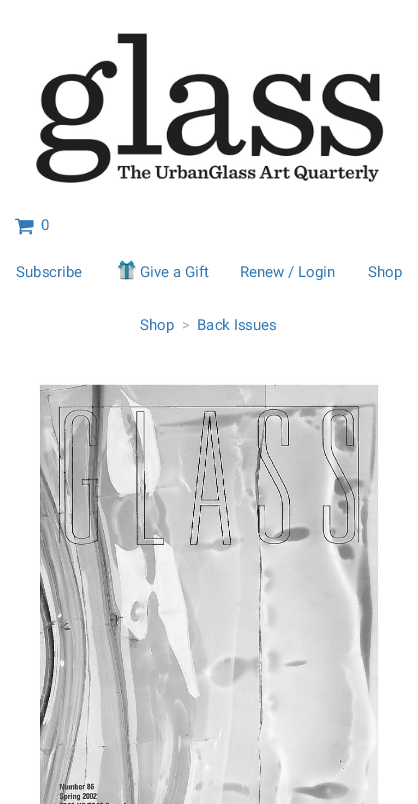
%!PS-Adobe-3.0
%%BoundingBox: 0 0 418 804
%%LanguageLevel: 3
%%Pages: 1
%%EndComments
%%BeginProlog
/drawimage { 5 dict begin { /h /w /y /x /name } { exch def } forall
  gsave x y translate w h scale
  w h 8 [w 0 0 h 0 0] name (r) file false 3 colorimage grestore end } def
%%EndProlog
%%BeginSetup
<< /PageSize [418 804] >> setpagedevice
%%EndSetup
%%Page: 1 1
0 804 translate 1 -1 scale
4 setmiterlimit
1 setgray
0 0 418 804 rectfill
(images/1.raw) 36 33 348 150 drawimage
(images/2.raw) 15 218 19 17 drawimage
(images/3.raw) 117 260 19 20 drawimage
(images/4.raw) 39 383 341 421 drawimage
/Roboto-Regular [15 0 0 -15 0 0] selectfont
0.2 0.478 0.718 setrgbcolor
41 230 moveto (0) show
16 277 moveto (Subscribe) show
140 277 moveto (Give a Gift) show
240 277 moveto (Renew / Login) show
368 277 moveto (Shop) show
140 330 moveto (Shop) show
0.694 setgray
182 330 moveto (>) show
0.2 0.478 0.718 setrgbcolor
197 330 moveto (Back Issues) show
showpage
%%EOF
